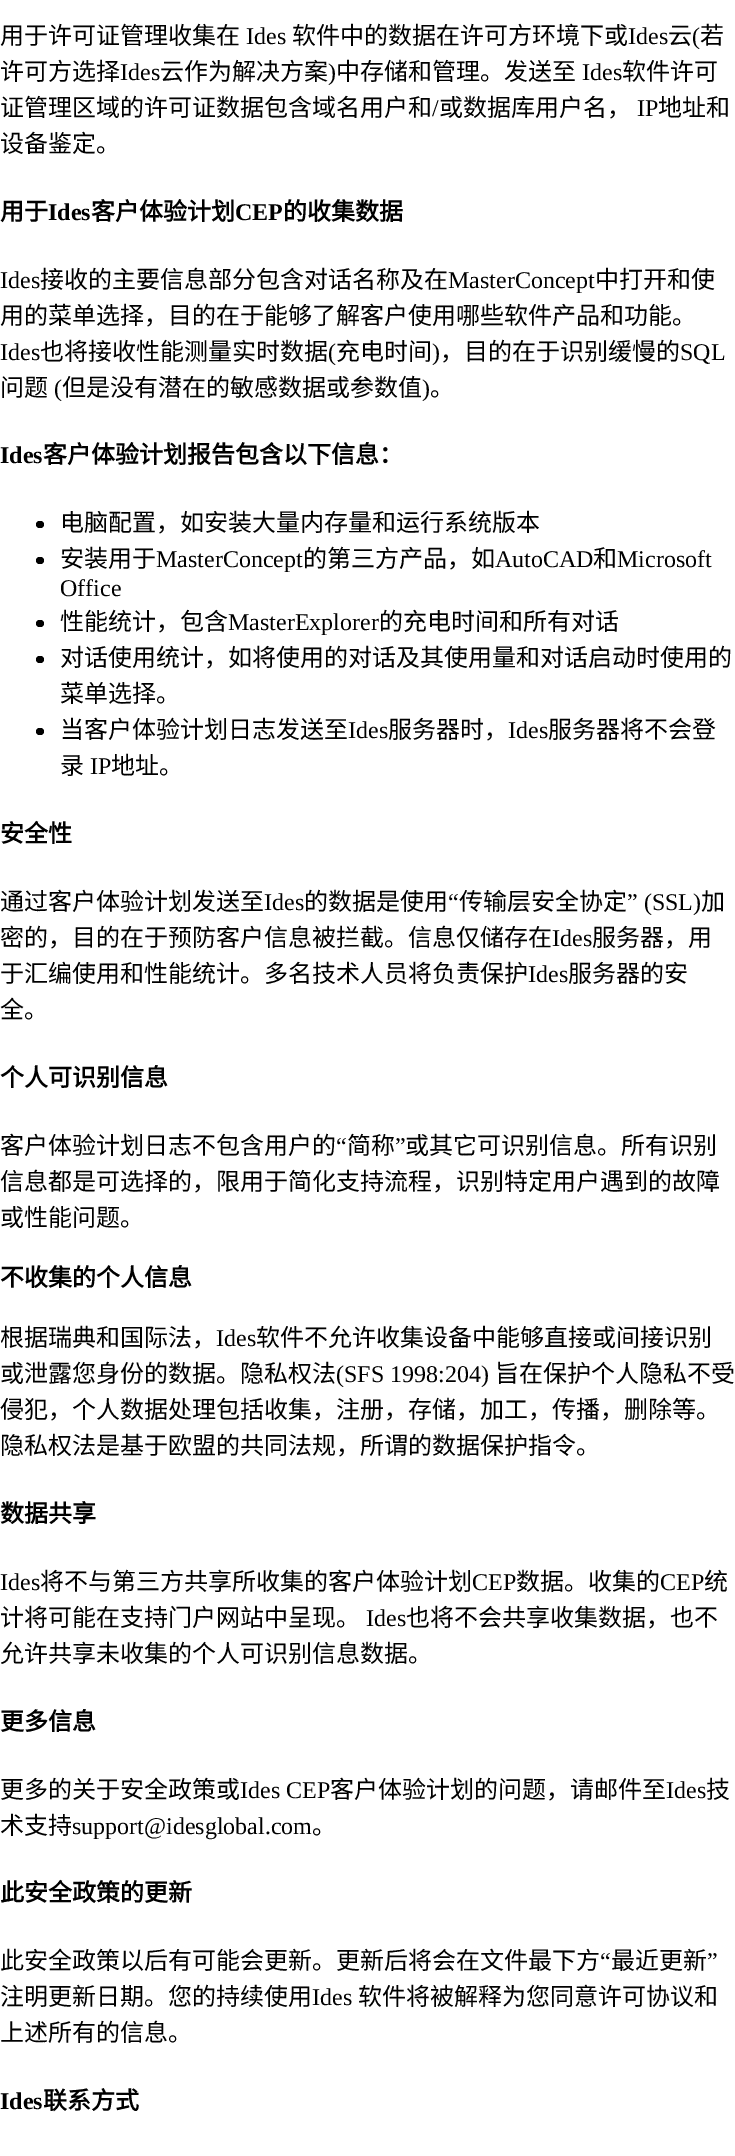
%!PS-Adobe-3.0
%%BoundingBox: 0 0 735 2156
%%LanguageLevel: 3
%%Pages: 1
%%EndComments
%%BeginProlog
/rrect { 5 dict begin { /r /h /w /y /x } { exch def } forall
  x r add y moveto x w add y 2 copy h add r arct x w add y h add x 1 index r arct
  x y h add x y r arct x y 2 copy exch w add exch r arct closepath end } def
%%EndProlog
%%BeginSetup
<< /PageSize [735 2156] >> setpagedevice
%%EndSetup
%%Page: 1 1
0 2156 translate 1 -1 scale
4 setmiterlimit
1 setgray
0 0 735 2156 rectfill
0 setgray
36 521 8 7 3.5 rrect fill
36 557 8 7 3.5 rrect fill
36 620 8 7 3.5 rrect fill
36 656 8 7 3.5 rrect fill
36 728 8 7 3.5 rrect fill
/NotoSansCJKSC-Regular [24 0 0 -24 0 0] selectfont
0 44 moveto (用于许可证管理收集在) show
/LiberationSerif-Regular [24 0 0 -24 0 0] selectfont
246 44 moveto (Ides) show
/NotoSansCJKSC-Regular [24 0 0 -24 0 0] selectfont
292 44 moveto (软件中的数据在许可方环境下或) show
/LiberationSerif-Regular [24 0 0 -24 0 0] selectfont
628 44 moveto (Ides) show
/NotoSansCJKSC-Regular [24 0 0 -24 0 0] selectfont
668 44 moveto (云) show
/LiberationSerif-Regular [24 0 0 -24 0 0] selectfont
692 44 moveto (\() show
/NotoSansCJKSC-Regular [24 0 0 -24 0 0] selectfont
700 44 moveto (若) show
0 80 moveto (许可方选择) show
/LiberationSerif-Regular [24 0 0 -24 0 0] selectfont
120 80 moveto (Ides) show
/NotoSansCJKSC-Regular [24 0 0 -24 0 0] selectfont
160 80 moveto (云作为解决方案) show
/LiberationSerif-Regular [24 0 0 -24 0 0] selectfont
328 80 moveto (\)) show
/NotoSansCJKSC-Regular [24 0 0 -24 0 0] selectfont
336 80 moveto (中存储和管理。发送至) show
/LiberationSerif-Regular [24 0 0 -24 0 0] selectfont
582 80 moveto (Ides) show
/NotoSansCJKSC-Regular [24 0 0 -24 0 0] selectfont
622 80 moveto (软件许可) show
0 116 moveto (证管理区域的许可证数据包含域名用户和) show
/LiberationSerif-Regular [24 0 0 -24 0 0] selectfont
432 116 moveto (/) show
/NotoSansCJKSC-Regular [24 0 0 -24 0 0] selectfont
439 116 moveto (或数据库用户名，) show
/LiberationSerif-Regular [24 0 0 -24 0 0] selectfont
637 116 moveto (IP) show
/NotoSansCJKSC-Regular [24 0 0 -24 0 0] selectfont
658 116 moveto (地址和) show
0 152 moveto (设备鉴定。) show
/NotoSansCJKSC-Bold [24 0 0 -24 0 0] selectfont
0 220 moveto (用于) show
/LiberationSerif-Bold [24 0 0 -24 0 0] selectfont
48 220 moveto (Ides) show
/NotoSansCJKSC-Bold [24 0 0 -24 0 0] selectfont
91 220 moveto (客户体验计划) show
/LiberationSerif-Bold [24 0 0 -24 0 0] selectfont
235 220 moveto (CEP) show
/NotoSansCJKSC-Bold [24 0 0 -24 0 0] selectfont
283 220 moveto (的收集数据) show
/LiberationSerif-Regular [24 0 0 -24 0 0] selectfont
0 288 moveto (Ides) show
/NotoSansCJKSC-Regular [24 0 0 -24 0 0] selectfont
40 288 moveto (接收的主要信息部分包含对话名称及在) show
/LiberationSerif-Regular [24 0 0 -24 0 0] selectfont
448 288 moveto (MasterConcept) show
/NotoSansCJKSC-Regular [24 0 0 -24 0 0] selectfont
595 288 moveto (中打开和使) show
0 324 moveto (用的菜单选择，目的在于能够了解客户使用哪些软件产品和功能。) show
/LiberationSerif-Regular [24 0 0 -24 0 0] selectfont
0 360 moveto (Ides) show
/NotoSansCJKSC-Regular [24 0 0 -24 0 0] selectfont
40 360 moveto (也将接收性能测量实时数据) show
/LiberationSerif-Regular [24 0 0 -24 0 0] selectfont
328 360 moveto (\() show
/NotoSansCJKSC-Regular [24 0 0 -24 0 0] selectfont
336 360 moveto (充电时间) show
/LiberationSerif-Regular [24 0 0 -24 0 0] selectfont
432 360 moveto (\)) show
/NotoSansCJKSC-Regular [24 0 0 -24 0 0] selectfont
440 360 moveto (，目的在于识别缓慢的) show
/LiberationSerif-Regular [24 0 0 -24 0 0] selectfont
680 360 moveto (SQL) show
/NotoSansCJKSC-Regular [24 0 0 -24 0 0] selectfont
0 396 moveto (问题) show
/LiberationSerif-Regular [24 0 0 -24 0 0] selectfont
54 396 moveto (\() show
/NotoSansCJKSC-Regular [24 0 0 -24 0 0] selectfont
62 396 moveto (但是没有潜在的敏感数据或参数值) show
/LiberationSerif-Regular [24 0 0 -24 0 0] selectfont
422 396 moveto (\)) show
/NotoSansCJKSC-Regular [24 0 0 -24 0 0] selectfont
430 396 moveto (。) show
/LiberationSerif-Bold [24 0 0 -24 0 0] selectfont
0 463 moveto (Ides) show
/NotoSansCJKSC-Bold [24 0 0 -24 0 0] selectfont
43 463 moveto (客户体验计划报告包含以下信息：) show
/NotoSansCJKSC-Regular [24 0 0 -24 0 0] selectfont
60 531 moveto (电脑配置，如安装大量内存量和运行系统版本) show
60 567 moveto (安装用于) show
/LiberationSerif-Regular [24 0 0 -24 0 0] selectfont
156 567 moveto (MasterConcept) show
/NotoSansCJKSC-Regular [24 0 0 -24 0 0] selectfont
303 567 moveto (的第三方产品，如) show
/LiberationSerif-Regular [24 0 0 -24 0 0] selectfont
495 567 moveto (AutoCAD) show
/NotoSansCJKSC-Regular [24 0 0 -24 0 0] selectfont
593 567 moveto (和) show
/LiberationSerif-Regular [24 0 0 -24 0 0] selectfont
617 567 moveto (Microsoft) show
60 596 moveto (Office) show
/NotoSansCJKSC-Regular [24 0 0 -24 0 0] selectfont
60 630 moveto (性能统计，包含) show
/LiberationSerif-Regular [24 0 0 -24 0 0] selectfont
228 630 moveto (MasterExplorer) show
/NotoSansCJKSC-Regular [24 0 0 -24 0 0] selectfont
379 630 moveto (的充电时间和所有对话) show
60 666 moveto (对话使用统计，如将使用的对话及其使用量和对话启动时使用的) show
60 702 moveto (菜单选择。) show
60 738 moveto (当客户体验计划日志发送至) show
/LiberationSerif-Regular [24 0 0 -24 0 0] selectfont
348 738 moveto (Ides) show
/NotoSansCJKSC-Regular [24 0 0 -24 0 0] selectfont
388 738 moveto (服务器时，) show
/LiberationSerif-Regular [24 0 0 -24 0 0] selectfont
508 738 moveto (Ides) show
/NotoSansCJKSC-Regular [24 0 0 -24 0 0] selectfont
548 738 moveto (服务器将不会登) show
60 774 moveto (录) show
/LiberationSerif-Regular [24 0 0 -24 0 0] selectfont
90 774 moveto (IP) show
/NotoSansCJKSC-Regular [24 0 0 -24 0 0] selectfont
111 774 moveto (地址。) show
/NotoSansCJKSC-Bold [24 0 0 -24 0 0] selectfont
0 842 moveto (安全性) show
/NotoSansCJKSC-Regular [24 0 0 -24 0 0] selectfont
0 910 moveto (通过客户体验计划发送至) show
/LiberationSerif-Regular [24 0 0 -24 0 0] selectfont
264 910 moveto (Ides) show
/NotoSansCJKSC-Regular [24 0 0 -24 0 0] selectfont
304 910 moveto (的数据是使用) show
/LiberationSerif-Regular [24 0 0 -24 0 0] selectfont
448 910 moveto (“) show
/NotoSansCJKSC-Regular [24 0 0 -24 0 0] selectfont
459 910 moveto (传输层安全协定) show
/LiberationSerif-Regular [24 0 0 -24 0 0] selectfont
627 910 moveto (” \(SSL\)) show
/NotoSansCJKSC-Regular [24 0 0 -24 0 0] selectfont
701 910 moveto (加) show
0 946 moveto (密的，目的在于预防客户信息被拦截。信息仅储存在) show
/LiberationSerif-Regular [24 0 0 -24 0 0] selectfont
552 946 moveto (Ides) show
/NotoSansCJKSC-Regular [24 0 0 -24 0 0] selectfont
592 946 moveto (服务器，用) show
0 982 moveto (于汇编使用和性能统计。多名技术人员将负责保护) show
/LiberationSerif-Regular [24 0 0 -24 0 0] selectfont
528 982 moveto (Ides) show
/NotoSansCJKSC-Regular [24 0 0 -24 0 0] selectfont
568 982 moveto (服务器的安) show
0 1018 moveto (全。) show
/NotoSansCJKSC-Bold [24 0 0 -24 0 0] selectfont
0 1086 moveto (个人可识别信息) show
/NotoSansCJKSC-Regular [24 0 0 -24 0 0] selectfont
0 1154 moveto (客户体验计划日志不包含用户的) show
/LiberationSerif-Regular [24 0 0 -24 0 0] selectfont
336 1154 moveto (“) show
/NotoSansCJKSC-Regular [24 0 0 -24 0 0] selectfont
347 1154 moveto (简称) show
/LiberationSerif-Regular [24 0 0 -24 0 0] selectfont
395 1154 moveto (”) show
/NotoSansCJKSC-Regular [24 0 0 -24 0 0] selectfont
405 1154 moveto (或其它可识别信息。所有识别) show
0 1190 moveto (信息都是可选择的，限用于简化支持流程，识别特定用户遇到的故障) show
0 1226 moveto (或性能问题。) show
/NotoSansCJKSC-Bold [24 0 0 -24 0 0] selectfont
0 1286 moveto (不收集的个人信息) show
/NotoSansCJKSC-Regular [24 0 0 -24 0 0] selectfont
0 1346 moveto (根据瑞典和国际法，) show
/LiberationSerif-Regular [24 0 0 -24 0 0] selectfont
216 1346 moveto (Ides) show
/NotoSansCJKSC-Regular [24 0 0 -24 0 0] selectfont
256 1346 moveto (软件不允许收集设备中能够直接或间接识别) show
0 1382 moveto (或泄露您身份的数据。隐私权法) show
/LiberationSerif-Regular [24 0 0 -24 0 0] selectfont
336 1382 moveto (\(SFS 1998:204\)) show
/NotoSansCJKSC-Regular [24 0 0 -24 0 0] selectfont
495 1382 moveto (旨在保护个人隐私不受) show
0 1418 moveto (侵犯，个人数据处理包括收集，注册，存储，加工，传播，删除等。) show
0 1454 moveto (隐私权法是基于欧盟的共同法规，所谓的数据保护指令。) show
/NotoSansCJKSC-Bold [24 0 0 -24 0 0] selectfont
0 1522 moveto (数据共享) show
/LiberationSerif-Regular [24 0 0 -24 0 0] selectfont
0 1590 moveto (Ides) show
/NotoSansCJKSC-Regular [24 0 0 -24 0 0] selectfont
40 1590 moveto (将不与第三方共享所收集的客户体验计划) show
/LiberationSerif-Regular [24 0 0 -24 0 0] selectfont
472 1590 moveto (CEP) show
/NotoSansCJKSC-Regular [24 0 0 -24 0 0] selectfont
516 1590 moveto (数据。收集的) show
/LiberationSerif-Regular [24 0 0 -24 0 0] selectfont
660 1590 moveto (CEP) show
/NotoSansCJKSC-Regular [24 0 0 -24 0 0] selectfont
704 1590 moveto (统) show
0 1626 moveto (计将可能在支持门户网站中呈现。) show
/LiberationSerif-Regular [24 0 0 -24 0 0] selectfont
366 1626 moveto (Ides) show
/NotoSansCJKSC-Regular [24 0 0 -24 0 0] selectfont
406 1626 moveto (也将不会共享收集数据，也不) show
0 1662 moveto (允许共享未收集的个人可识别信息数据。) show
/NotoSansCJKSC-Bold [24 0 0 -24 0 0] selectfont
0 1730 moveto (更多信息) show
/NotoSansCJKSC-Regular [24 0 0 -24 0 0] selectfont
0 1798 moveto (更多的关于安全政策或) show
/LiberationSerif-Regular [24 0 0 -24 0 0] selectfont
240 1798 moveto (Ides CEP) show
/NotoSansCJKSC-Regular [24 0 0 -24 0 0] selectfont
330 1798 moveto (客户体验计划的问题，请邮件至) show
/LiberationSerif-Regular [24 0 0 -24 0 0] selectfont
666 1798 moveto (Ides) show
/NotoSansCJKSC-Regular [24 0 0 -24 0 0] selectfont
706 1798 moveto (技) show
0 1834 moveto (术支持) show
/LiberationSerif-Regular [24 0 0 -24 0 0] selectfont
72 1834 moveto (support@idesglobal.com) show
/NotoSansCJKSC-Regular [24 0 0 -24 0 0] selectfont
312 1834 moveto (。) show
/NotoSansCJKSC-Bold [24 0 0 -24 0 0] selectfont
0 1901 moveto (此安全政策的更新) show
/NotoSansCJKSC-Regular [24 0 0 -24 0 0] selectfont
0 1969 moveto (此安全政策以后有可能会更新。更新后将会在文件最下方) show
/LiberationSerif-Regular [24 0 0 -24 0 0] selectfont
600 1969 moveto (“) show
/NotoSansCJKSC-Regular [24 0 0 -24 0 0] selectfont
611 1969 moveto (最近更新) show
/LiberationSerif-Regular [24 0 0 -24 0 0] selectfont
707 1969 moveto (”) show
/NotoSansCJKSC-Regular [24 0 0 -24 0 0] selectfont
0 2005 moveto (注明更新日期。您的持续使用) show
/LiberationSerif-Regular [24 0 0 -24 0 0] selectfont
312 2005 moveto (Ides) show
/NotoSansCJKSC-Regular [24 0 0 -24 0 0] selectfont
358 2005 moveto (软件将被解释为您同意许可协议和) show
0 2041 moveto (上述所有的信息。) show
/LiberationSerif-Bold [24 0 0 -24 0 0] selectfont
0 2109 moveto (Ides) show
/NotoSansCJKSC-Bold [24 0 0 -24 0 0] selectfont
43 2109 moveto (联系方式) show
showpage
%%EOF
